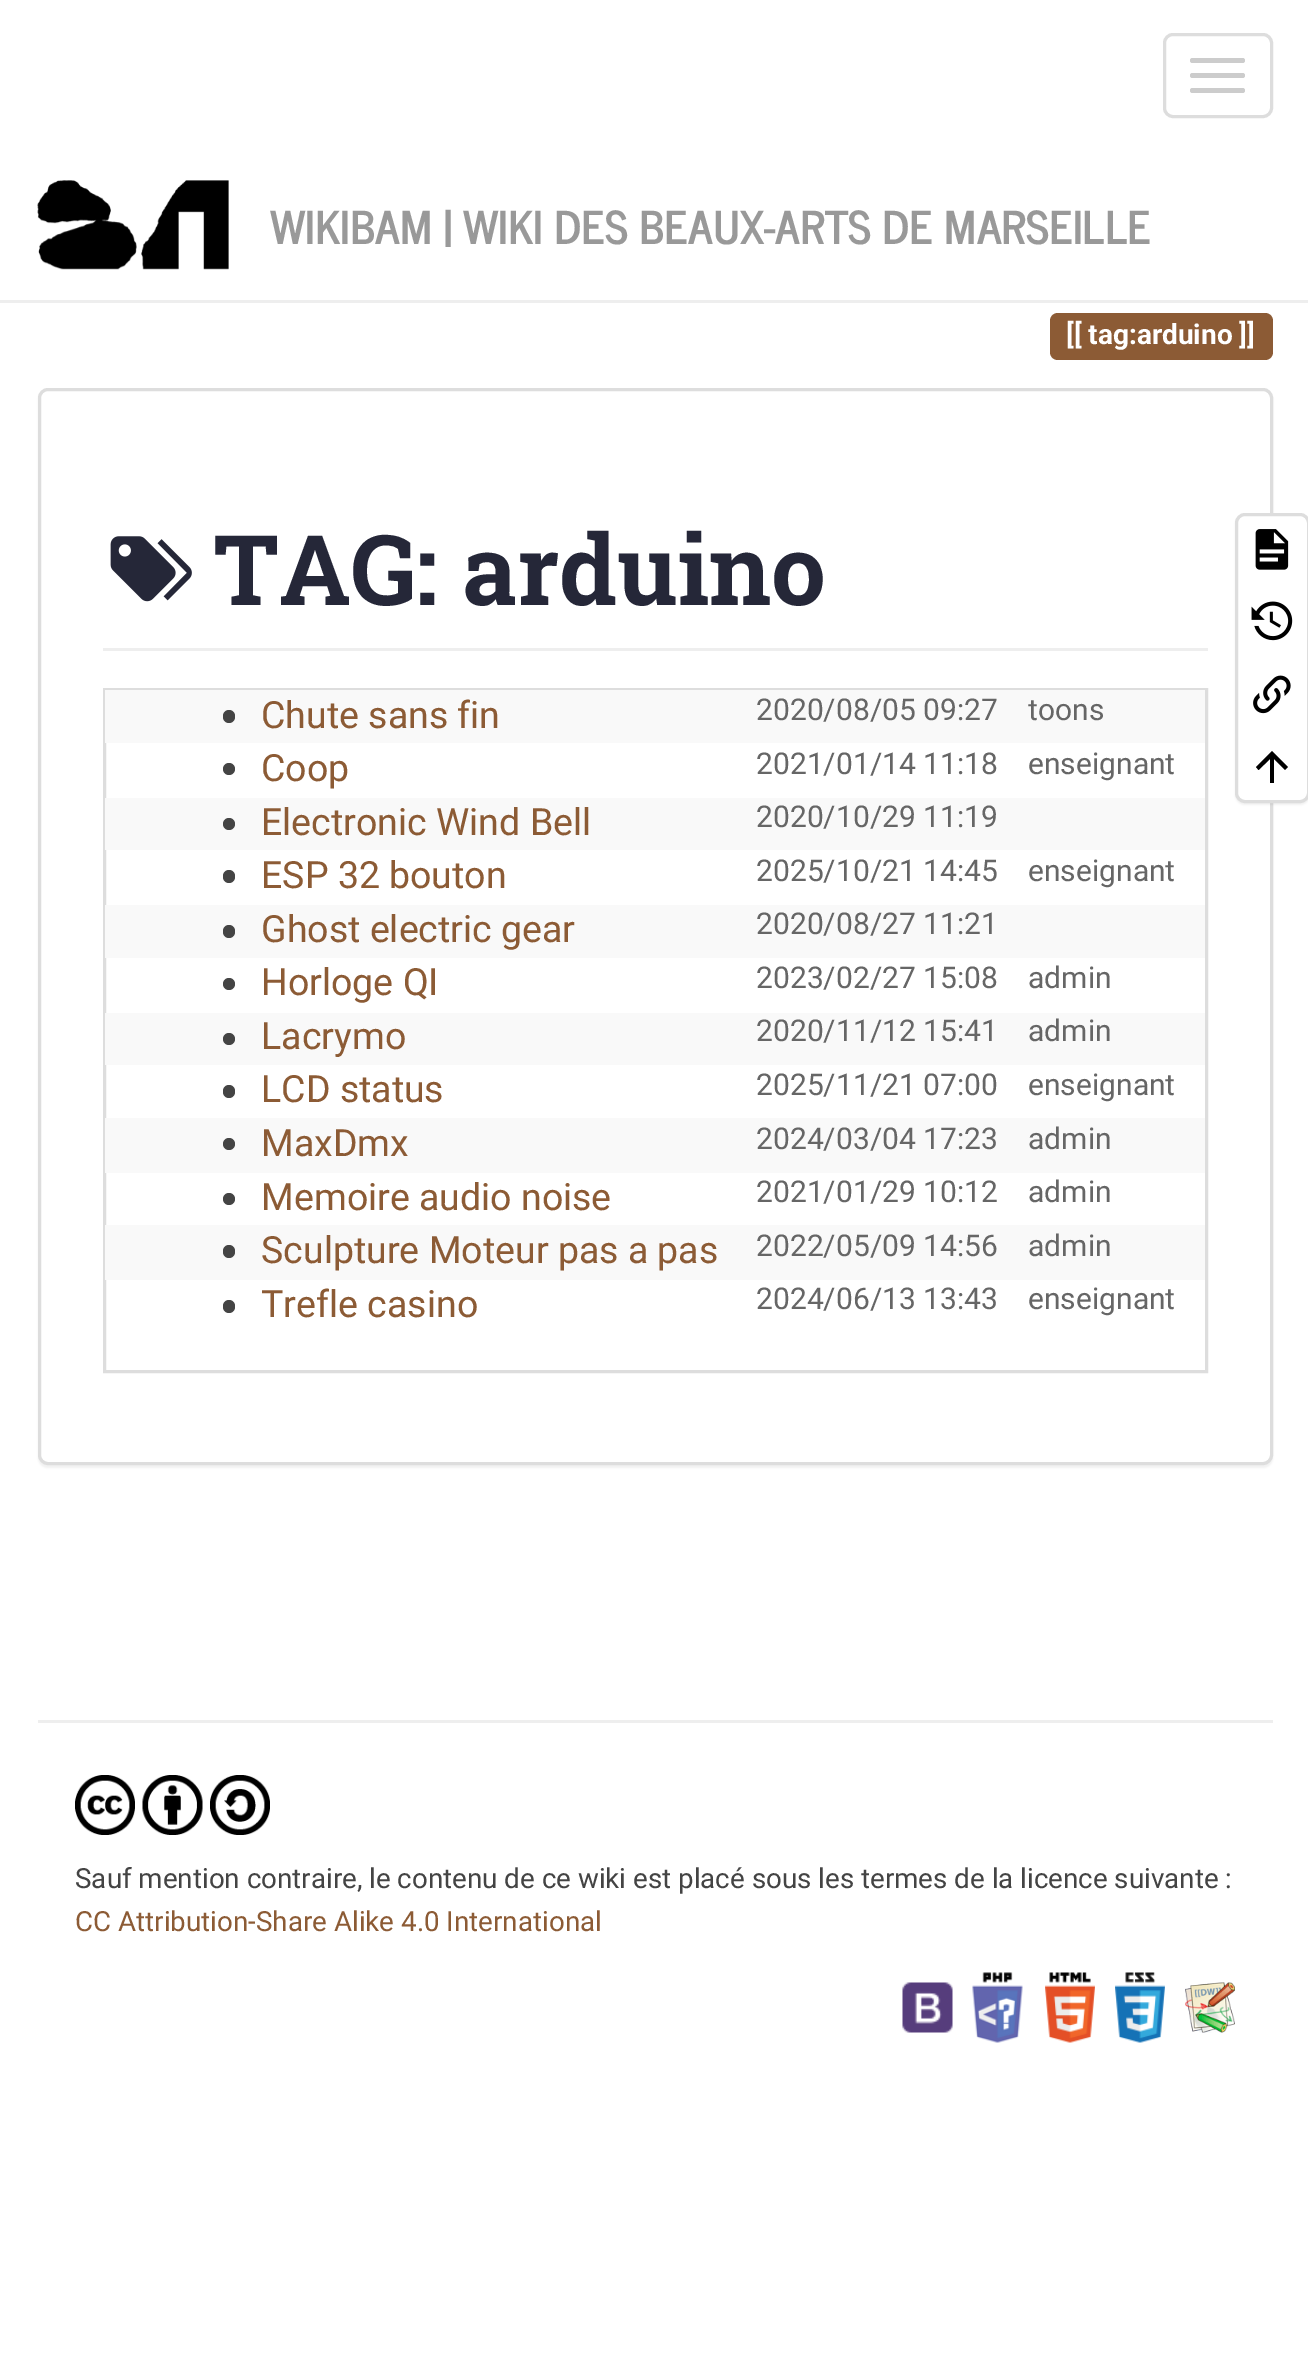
%!PS-Adobe-3.0
%%BoundingBox: 0 0 1308 2379
%%LanguageLevel: 3
%%Pages: 1
%%EndComments
%%BeginProlog
/setalpha { dup .setfillconstantalpha .setstrokeconstantalpha } def
/rrect { 5 dict begin { /r /h /w /y /x } { exch def } forall
  x r add y moveto x w add y 2 copy h add r arct x w add y h add x 1 index r arct
  x y h add x y r arct x y 2 copy exch w add exch r arct closepath end } def
/softshadow { 12 dict begin { /a /b /q /h /w /y /x } { exch def } forall gsave /was 0 def
  9 -2 -9 { dup b mul 4 div /e exch def 1 sub .425 mul 2.718 exch exp 1 add a .99 .min exch div /now exch def
    1 1 now sub 1 was sub div sub setalpha /was now def
    w h .min e 2 mul add 0 gt { x e sub y e sub w e 2 mul add h e 2 mul add
      q e add b .6 mul add w h .min 2 div e add .min 0 .max rrect fill } if } for grestore end } def
/drawimage { 5 dict begin { /h /w /y /x /name } { exch def } forall
  gsave x y translate w h scale
  w h 8 [w 0 0 h 0 0] name (r) file false 3 colorimage grestore end } def
%%EndProlog
%%BeginSetup
<< /PageSize [1308 2379] /PageUsesTransparency true >> setpagedevice
%%EndSetup
%%Page: 1 1
0 .pushpdf14devicefilter
0 2379 translate 1 -1 scale
4 setmiterlimit
1 setgray
0 0 1308 2379 rectfill
0.933 setgray
0 300 1308 3 rectfill
0.867 setgray
3 setlinewidth
1164.5 34.5 107 82 8.5 rrect stroke
0.8 setgray
1190 58 55 5 2.5 rrect fill
1190 73 55 5 2.5 rrect fill
1190 88 55 5 2.5 rrect fill
(images/1.raw) 37 180 192 90 drawimage
0.549 0.357 0.208 setrgbcolor
newpath 1058 313 moveto 1088 313 lineto 1088 360 lineto 1058 360 lineto 1053.5 360 1050 356.5 1050 352 curveto 1050 321 lineto 1050 316.5 1053.5 313 1058 313 curveto closepath fill
1088 313 145 47 rectfill
newpath 1233 313 moveto 1265 313 lineto 1269.5 313 1273 316.5 1273 321 curveto 1273 352 lineto 1273 356.5 1269.5 360 1265 360 curveto 1233 360 lineto closepath fill
0 setgray
38 390 1235 1078 10 1 0.05 softshadow
1 setgray
39.5 389.5 1232 1074 8.5 rrect gsave fill grestore
0.867 setgray
stroke
0.933 setgray
103 648 1105 3 rectfill
(images/2.raw) 110 536 82 66 drawimage
0.867 setgray
104.5 689.5 1102 682 rectstroke
0.976 setgray
105 690 1100 53 rectfill
0.267 setgray
223 710 12 13 6 rrect fill
newpath 229 769 6 0 360 arc closepath fill
0.976 setgray
105 798 1100 52 rectfill
0.267 setgray
newpath 229 824 6 0 360 arc closepath fill
223 870 12 13 6 rrect fill
0.976 setgray
105 905 1100 53 rectfill
0.267 setgray
223 925 12 13 6 rrect fill
newpath 229 984 6 0 360 arc closepath fill
0.976 setgray
105 1013 1100 52 rectfill
0.267 setgray
newpath 229 1039 6 0 360 arc closepath fill
223 1085 12 13 6 rrect fill
0.976 setgray
105 1118 1100 55 rectfill
0.267 setgray
newpath 229 1144 6 0 360 arc closepath fill
newpath 229 1199 6 0 360 arc closepath fill
0.976 setgray
105 1225 1100 55 rectfill
0.267 setgray
223 1245 12 13 6 rrect fill
223 1300 12 13 6 rrect fill
0 setgray
1235 515 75 290 10 1 0.05 softshadow
1 setgray
1236.5 514.5 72 287 8.5 rrect gsave fill grestore
0.867 setgray
stroke
(images/3.raw) 1255 529 34 41 drawimage
(images/4.raw) 1251 601 42 40 drawimage
(images/5.raw) 1253 675 38 39 drawimage
0 setgray
newpath 1274 783 moveto 1270 783 lineto 1270 759 lineto 1258.5 770 lineto 1256 767 lineto 1272 751 lineto 1288 767 lineto 1285 770 lineto 1274 759 lineto closepath fill
0.933 setgray
38 1720 1235 3 rectfill
(images/6.raw) 75 1775 60 60 drawimage
(images/7.raw) 142 1775 61 60 drawimage
(images/8.raw) 210 1775 60 60 drawimage
(images/9.raw) 902 1982 51 51 drawimage
(images/10.raw) 972 1972 51 71 drawimage
(images/11.raw) 1045 1972 50 71 drawimage
(images/12.raw) 1115 1972 50 71 drawimage
(images/13.raw) 1185 1982 50 51 drawimage
/NewsCycle-Bold [45 0 0 -45 0 0] selectfont
0.6 setgray
270 244 moveto (WIKIBAM | WIKI DES BEAUX-ARTS DE MARSEILLE) show
/Roboto-Bold [28 0 0 -28 0 0] selectfont
1 setgray
1066 344 moveto ([[ tag:arduino ]]) show
/RobotoSlab-Bold [97.5 0 0 -97.5 0 0] selectfont
0.145 0.153 0.22 setrgbcolor
213 605 moveto (TAG: arduino) show
/Roboto-Regular [37.5 0 0 -37.5 0 0] selectfont
0.549 0.357 0.208 setrgbcolor
261 728 moveto (Chute sans fin) show
/Roboto-Regular [30 0 0 -30 0 0] selectfont
0.4 setgray
756 720 moveto (2020/08/05 09:27) show
1028 720 moveto (toons) show
/Roboto-Regular [37.5 0 0 -37.5 0 0] selectfont
0.549 0.357 0.208 setrgbcolor
261 781 moveto (Coop) show
/Roboto-Regular [30 0 0 -30 0 0] selectfont
0.4 setgray
756 774 moveto (2021/01/14 11:18) show
1028 774 moveto (enseignant) show
/Roboto-Regular [37.5 0 0 -37.5 0 0] selectfont
0.549 0.357 0.208 setrgbcolor
261 835 moveto (Electronic Wind Bell) show
/Roboto-Regular [30 0 0 -30 0 0] selectfont
0.4 setgray
756 827 moveto (2020/10/29 11:19) show
/Roboto-Regular [37.5 0 0 -37.5 0 0] selectfont
0.549 0.357 0.208 setrgbcolor
261 888 moveto (ESP 32 bouton) show
/Roboto-Regular [30 0 0 -30 0 0] selectfont
0.4 setgray
756 881 moveto (2025/10/21 14:45) show
1028 881 moveto (enseignant) show
/Roboto-Regular [37.5 0 0 -37.5 0 0] selectfont
0.549 0.357 0.208 setrgbcolor
261 942 moveto (Ghost electric gear) show
/Roboto-Regular [30 0 0 -30 0 0] selectfont
0.4 setgray
756 934 moveto (2020/08/27 11:21) show
/Roboto-Regular [37.5 0 0 -37.5 0 0] selectfont
0.549 0.357 0.208 setrgbcolor
261 995 moveto (Horloge QI) show
/Roboto-Regular [30 0 0 -30 0 0] selectfont
0.4 setgray
756 988 moveto (2023/02/27 15:08) show
1028 988 moveto (admin) show
/Roboto-Regular [37.5 0 0 -37.5 0 0] selectfont
0.549 0.357 0.208 setrgbcolor
261 1049 moveto (Lacrymo) show
/Roboto-Regular [30 0 0 -30 0 0] selectfont
0.4 setgray
756 1041 moveto (2020/11/12 15:41) show
1028 1041 moveto (admin) show
/Roboto-Regular [37.5 0 0 -37.5 0 0] selectfont
0.549 0.357 0.208 setrgbcolor
261 1102 moveto (LCD status) show
/Roboto-Regular [30 0 0 -30 0 0] selectfont
0.4 setgray
756 1095 moveto (2025/11/21 07:00) show
1028 1095 moveto (enseignant) show
/Roboto-Regular [37.5 0 0 -37.5 0 0] selectfont
0.549 0.357 0.208 setrgbcolor
261 1156 moveto (MaxDmx) show
/Roboto-Regular [30 0 0 -30 0 0] selectfont
0.4 setgray
756 1149 moveto (2024/03/04 17:23) show
1028 1149 moveto (admin) show
/Roboto-Regular [37.5 0 0 -37.5 0 0] selectfont
0.549 0.357 0.208 setrgbcolor
261 1210 moveto (Memoire audio noise) show
/Roboto-Regular [30 0 0 -30 0 0] selectfont
0.4 setgray
756 1202 moveto (2021/01/29 10:12) show
1028 1202 moveto (admin) show
/Roboto-Regular [37.5 0 0 -37.5 0 0] selectfont
0.549 0.357 0.208 setrgbcolor
261 1263 moveto (Sculpture Moteur pas a pas) show
/Roboto-Regular [30 0 0 -30 0 0] selectfont
0.4 setgray
756 1256 moveto (2022/05/09 14:56) show
1028 1256 moveto (admin) show
/Roboto-Regular [37.5 0 0 -37.5 0 0] selectfont
0.549 0.357 0.208 setrgbcolor
261 1317 moveto (Trefle casino) show
/Roboto-Regular [30 0 0 -30 0 0] selectfont
0.4 setgray
756 1309 moveto (2024/06/13 13:43) show
1028 1309 moveto (enseignant) show
/Roboto-Regular [27.75 0 0 -27.75 0 0] selectfont
0.267 setgray
75 1888 moveto (Sauf mention contraire, le contenu de ce wiki est placé sous les termes de la licence suivante :) show
0.549 0.357 0.208 setrgbcolor
75 1931 moveto (CC Attribution-Share Alike 4.0 International) show
.poppdf14devicefilter showpage
%%EOF
